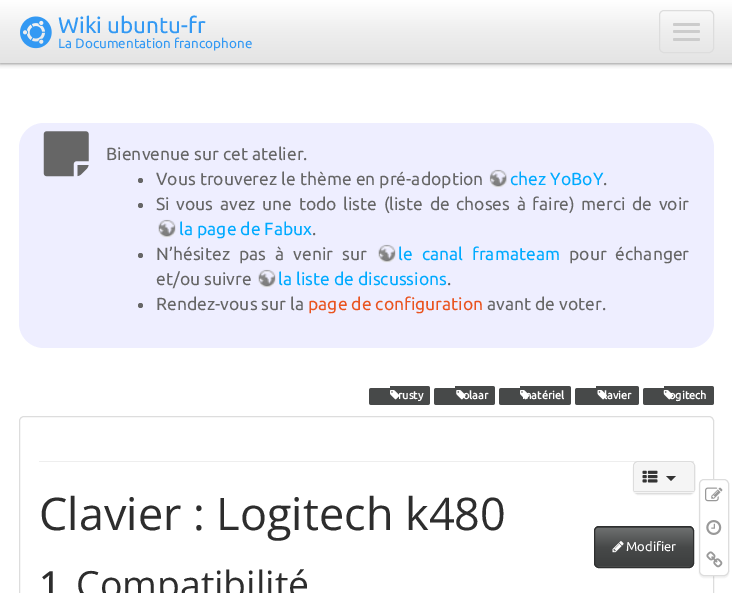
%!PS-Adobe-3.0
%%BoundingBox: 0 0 732 593
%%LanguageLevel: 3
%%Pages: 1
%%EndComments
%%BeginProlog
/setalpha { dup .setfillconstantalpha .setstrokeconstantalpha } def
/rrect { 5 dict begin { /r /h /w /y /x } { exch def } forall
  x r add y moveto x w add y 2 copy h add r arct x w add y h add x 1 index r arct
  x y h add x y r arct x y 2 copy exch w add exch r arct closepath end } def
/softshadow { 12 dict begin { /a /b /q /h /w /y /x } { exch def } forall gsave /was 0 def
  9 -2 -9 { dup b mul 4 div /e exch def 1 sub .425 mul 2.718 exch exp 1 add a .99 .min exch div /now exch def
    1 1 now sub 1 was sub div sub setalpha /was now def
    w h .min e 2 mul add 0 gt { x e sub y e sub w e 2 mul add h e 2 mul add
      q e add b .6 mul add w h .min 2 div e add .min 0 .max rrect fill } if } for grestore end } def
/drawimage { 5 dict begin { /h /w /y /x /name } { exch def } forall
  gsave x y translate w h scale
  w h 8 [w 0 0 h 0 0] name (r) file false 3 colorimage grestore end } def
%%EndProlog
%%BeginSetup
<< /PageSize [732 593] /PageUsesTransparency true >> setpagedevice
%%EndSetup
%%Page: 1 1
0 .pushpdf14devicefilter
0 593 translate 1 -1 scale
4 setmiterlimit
1 setgray
0 0 732 593 rectfill
0.4 setgray
0 0 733 63 0 2.5 1 softshadow
gsave newpath 0 0 moveto 732 0 lineto 732 63 lineto 0 63 lineto closepath clip newpath
<< /ShadingType 2 /ColorSpace /DeviceRGB /Coords [366 0 366 63] /Extend [true true] /Function << /FunctionType 3 /Domain [0 1] /Functions [<< /FunctionType 2 /Domain [0 1] /C0 [1 1 1] /C1 [0.933 0.933 0.933] /N 1 >> << /FunctionType 2 /Domain [0 1] /C0 [0.933 0.933 0.933] /C1 [0.894 0.894 0.894] /N 1 >>] /Bounds [0.5] /Encode [0 1 0 1] >> >> shfill grestore
(images/1.raw) 20 16 32 33 drawimage
0.867 setgray
659.5 10.5 54 42 4.5 rrect stroke
0.8 setgray
673 23 27 3 1.5 rrect fill
673 30 27 3 1.5 rrect fill
673 38 27 3 1.5 rrect fill
0.933 0.933 1 setrgbcolor
19 123 695 225 25 rrect fill
(images/2.raw) 43 131 46 46 drawimage
0.4 setgray
newpath 140.5 180.5 2.5 0 360 arc closepath fill
(images/3.raw) 489 169 18 19 drawimage
newpath 140.5 205.5 2.5 0 360 arc closepath fill
(images/4.raw) 158 219 18 19 drawimage
newpath 140.5 255.5 2.5 0 360 arc closepath fill
(images/4.raw) 378 244 18 19 drawimage
(images/5.raw) 258 269 18 19 drawimage
newpath 140.5 305.5 2.5 0 360 arc closepath fill
0.278 0.286 0.286 setrgbcolor
newpath 371.5 388 moveto 390 388 lineto 390 405 lineto 371.5 405 lineto 370 405 369 404 369 402.5 curveto 369 390.5 lineto 369 389 370 388 371.5 388 curveto closepath fill
390 386 3 19 rectfill
newpath 393 386 moveto 427.5 386 lineto 429 386 430 387 430 388.5 curveto 430 402.5 lineto 430 404 429 405 427.5 405 curveto 393 405 lineto closepath fill
(images/6.raw) 390 390 10 10 drawimage
newpath 436.5 388 moveto 455 388 lineto 455 405 lineto 436.5 405 lineto 435 405 434 404 434 402.5 curveto 434 390.5 lineto 434 389 435 388 436.5 388 curveto closepath fill
455 386 3 19 rectfill
newpath 458 386 moveto 492.5 386 lineto 494 386 495 387 495 388.5 curveto 495 402.5 lineto 495 404 494 405 492.5 405 curveto 458 405 lineto closepath fill
(images/7.raw) 456 390 10 10 drawimage
newpath 501.5 388 moveto 520 388 lineto 520 405 lineto 501.5 405 lineto 500 405 499 404 499 402.5 curveto 499 390.5 lineto 499 389 500 388 501.5 388 curveto closepath fill
520 386 3 19 rectfill
newpath 523 386 moveto 568.5 386 lineto 570 386 571 387 571 388.5 curveto 571 402.5 lineto 571 404 570 405 568.5 405 curveto 523 405 lineto closepath fill
(images/6.raw) 520 390 10 10 drawimage
newpath 577.5 388 moveto 596 388 lineto 596 405 lineto 577.5 405 lineto 576 405 575 404 575 402.5 curveto 575 390.5 lineto 575 389 576 388 577.5 388 curveto closepath fill
596 386 3 19 rectfill
newpath 599 386 moveto 636.5 386 lineto 638 386 639 387 639 388.5 curveto 639 402.5 lineto 639 404 638 405 636.5 405 curveto 599 405 lineto closepath fill
(images/8.raw) 597 390 10 10 drawimage
newpath 645.5 388 moveto 664 388 lineto 664 405 lineto 645.5 405 lineto 644 405 643 404 643 402.5 curveto 643 390.5 lineto 643 389 644 388 645.5 388 curveto closepath fill
664 386 2 19 rectfill
newpath 666 386 moveto 711.5 386 lineto 713 386 714 387 714 388.5 curveto 714 402.5 lineto 714 404 713 405 711.5 405 curveto 666 405 lineto closepath fill
(images/9.raw) 663 390 11 10 drawimage
0.867 setgray
19.5 416.5 694 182 4.5 rrect stroke
0.933 setgray
39 461 655 1 rectfill
0 setgray
633 463 62 32 5 0.5 0.05 softshadow
1 setgray
633.5 461.5 61 32 4.5 rrect gsave fill grestore
0.867 setgray
stroke
0.961 setgray
newpath 638 463 moveto 690 463 lineto 692 463 694 465 694 467 curveto 694 493 lineto 634 493 lineto 634 467 lineto 634 465 636 463 638 463 curveto closepath fill
0.867 setgray
634 491 60 1 rectfill
(images/10.raw) 642 470 16 13 drawimage
0.2 setgray
newpath 666 476 moveto 676 476 lineto 671 481 lineto closepath fill
0.278 0.286 0.286 setrgbcolor
594 526 100 42 5 rrect fill
gsave newpath 595 528 moveto 693 528 lineto 693 566 lineto 595 566 lineto closepath clip newpath
<< /ShadingType 2 /ColorSpace /DeviceRGB /Coords [644 528 644 566] /Extend [true true] /Function << /FunctionType 3 /Domain [0 1] /Functions [<< /FunctionType 2 /Domain [0 1] /C0 [0.427 0.439 0.439] /C1 [0.278 0.286 0.286] /N 1 >> << /FunctionType 2 /Domain [0 1] /C0 [0.278 0.286 0.286] /C1 [0.239 0.247 0.247] /N 1 >>] /Bounds [0.5] /Encode [0 1 0 1] >> >> shfill grestore
0.18 0.184 0.184 setrgbcolor
594.5 526.5 99 41 4.5 rrect stroke
(images/11.raw) 612 541 12 12 drawimage
0 setgray
699 480 30 98 5 0.5 0.05 softshadow
1 setgray
699.5 479.5 29 96 4.5 rrect gsave fill grestore
0.867 setgray
stroke
(images/12.raw) 705 487 18 15 drawimage
(images/13.raw) 706 520 16 15 drawimage
(images/14.raw) 706 551 17 17 drawimage
/Ubuntu-Regular [22.5 0 0 -22.5 0 0] selectfont
0.2 0.6 0.953 setrgbcolor
58 33 moveto (Wiki ubuntu-fr) show
/Ubuntu-Regular [13.5 0 0 -13.5 0 0] selectfont
58 48 moveto (La Documentation francophone) show
/Ubuntu-Regular [17.5 0 0 -17.5 0 0] selectfont
0.4 setgray
106 160 moveto (Bienvenue sur cet atelier.) show
156 185 moveto (Vous trouverez le thème en pré-adoption) show
0 0.667 1 setrgbcolor
510 185 moveto (chez YoBoY) show
0.4 setgray
603 185 moveto (.) show
156 210 moveto 2.5 0 32 (Si vous avez une todo liste \(liste de choses à faire\) merci de voir) widthshow
0 0.667 1 setrgbcolor
179 235 moveto (la page de Fabux) show
0.4 setgray
312 235 moveto (.) show
156 260 moveto 5 0 32 (N’hésitez pas à venir sur) widthshow
0 0.667 1 setrgbcolor
398 260 moveto 5 0 32 (le canal framateam) widthshow
0.4 setgray
569 260 moveto 5 0 32 (pour échanger) widthshow
156 285 moveto (et/ou suivre) show
0 0.667 1 setrgbcolor
278 285 moveto (la liste de discussions) show
0.4 setgray
447 285 moveto (.) show
156 310 moveto (Rendez-vous sur la) show
0.914 0.329 0.125 setrgbcolor
308 310 moveto (page de configuration) show
0.4 setgray
487 310 moveto (avant de voter.) show
/Ubuntu-Bold [11 0 0 -11 0 0] selectfont
1 setgray
398 399 moveto (rusty) show
463 399 moveto (olaar) show
522 399 moveto (matériel) show
604 399 moveto (lavier) show
669 399 moveto (ogitech) show
/OpenSans-Regular [45 0 0 -45 0 0] selectfont
0.176 setgray
39 530 moveto (Clavier : Logitech k480) show
/Ubuntu-Regular [13 0 0 -13 0 0] selectfont
1 setgray
626 551 moveto (Modifier) show
/OpenSans-Medium [37.5 0 0 -37.5 0 0] selectfont
0.176 setgray
39 598 moveto (1) show
/OpenSans-Regular [37.5 0 0 -37.5 0 0] selectfont
76 598 moveto (Compatibilité) show
.poppdf14devicefilter showpage
%%EOF
